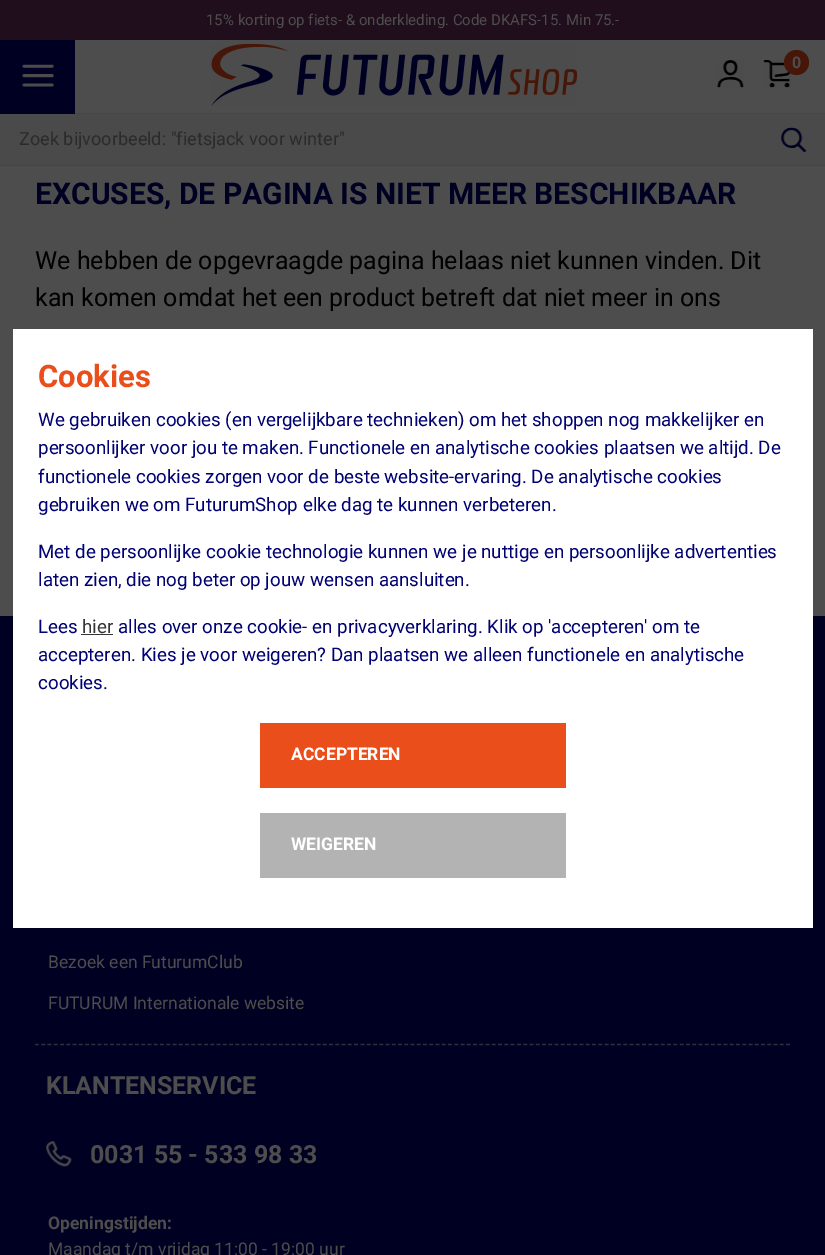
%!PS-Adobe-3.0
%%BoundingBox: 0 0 825 1255
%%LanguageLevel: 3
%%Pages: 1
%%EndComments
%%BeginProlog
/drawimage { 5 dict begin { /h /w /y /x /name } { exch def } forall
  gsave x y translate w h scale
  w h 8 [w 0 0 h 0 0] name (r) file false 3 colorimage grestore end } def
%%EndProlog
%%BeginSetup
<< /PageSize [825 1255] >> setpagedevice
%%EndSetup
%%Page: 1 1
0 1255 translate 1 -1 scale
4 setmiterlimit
0.302 setgray
0 0 825 1255 rectfill
0.125 0.055 0.11 setrgbcolor
0 0 825 40 rectfill
0.271 setgray
75 113 750 1 rectfill
0 0 0.133 setrgbcolor
0 40 75 74 rectfill
(images/1.raw) 22 64 32 23 drawimage
(images/2.raw) 211 44 366 62 drawimage
(images/3.raw) 717 60 27 28 drawimage
(images/4.raw) 763 60 28 28 drawimage
0.275 0.09 0.031 setrgbcolor
newpath 796.5 62.5 12.5 0 360 arc closepath fill
0.271 setgray
0 165 825 1 rectfill
0.29 setgray
0 114 825 51 rectfill
(images/5.raw) 781 127 26 26 drawimage
0 0 0.133 setrgbcolor
0 616 825 639 rectfill
1 setgray
13 329 800 599 rectfill
0.212 setgray
81 634 32 1 rectfill
0.914 0.306 0.106 setrgbcolor
260 723 306 65 rectfill
0.702 setgray
260 813 306 65 rectfill
0.18 0.18 0.235 setrgbcolor
1.2 setlinewidth
[3.75 2.51] 0 setdash
newpath 35 1044.5 moveto 790 1044.5 lineto stroke
(images/6.raw) 46 1141 26 26 drawimage
/Roboto-Regular [15 0 0 -15 0 0] selectfont
0.302 setgray
206 25 moveto (15% korting op fiets- & onderkleding. Code DKAFS-15. Min 75.-) show
/Roboto-Bold [16 0 0 -16 0 0] selectfont
792 68 moveto (0) show
/Roboto-Regular [18.1 0 0 -18.1 0 0] selectfont
0.169 setgray
19 145 moveto (Zoek bijvoorbeeld: "fietsjack voor winter") show
/Roboto-Bold [31 0 0 -31 0 0] selectfont
0.914 0.306 0.106 setrgbcolor
38 387 moveto (Cookies) show
/Roboto-Regular [18.75 0 0 -18.75 0 0] selectfont
0.004 0.004 0.447 setrgbcolor
38 426 moveto (We gebruiken cookies \(en vergelijkbare technieken\) om het shoppen nog makkelijker en) show
38 454 moveto (persoonlijker voor jou te maken. Functionele en analytische cookies plaatsen we altijd. De) show
38 483 moveto (functionele cookies zorgen voor de beste website-ervaring. De analytische cookies) show
38 511 moveto (gebruiken we om FuturumShop elke dag te kunnen verbeteren.) show
38 558 moveto (Met de persoonlijke cookie technologie kunnen we je nuttige en persoonlijke advertenties) show
38 586 moveto (laten zien, die nog beter op jouw wensen aansluiten.) show
38 633 moveto (Lees) show
0.212 setgray
82 633 moveto (hier) show
0.004 0.004 0.447 setrgbcolor
118 633 moveto (alles over onze cookie- en privacyverklaring. Klik op 'accepteren' om te) show
38 661 moveto (accepteren. Kies je voor weigeren? Dan plaatsen we alleen functionele en analytische) show
38 689 moveto (cookies.) show
/Roboto-Bold [17.5 0 0 -17.5 0 0] selectfont
1 setgray
291 760 moveto (ACCEPTEREN) show
291 850 moveto (WEIGEREN) show
/Roboto-Bold [30 0 0 -30 0 0] selectfont
0 0 0.133 setrgbcolor
35 204 moveto (EXCUSES, DE PAGINA IS NIET MEER BESCHIKBAAR) show
/Roboto-Regular [25 0 0 -25 0 0] selectfont
0 setgray
35 269 moveto (We hebben de opgevraagde pagina helaas niet kunnen vinden. Dit) show
35 306 moveto (kan komen omdat het een product betreft dat niet meer in ons) show
/Roboto-Regular [17.5 0 0 -17.5 0 0] selectfont
0.302 setgray
48 968 moveto (Bezoek een FuturumClub) show
48 1009 moveto (FUTURUM Internationale website) show
/Roboto-Bold [25 0 0 -25 0 0] selectfont
46 1094 moveto (KLANTENSERVICE) show
90 1163 moveto (0031 55 - 533 98 33) show
/Roboto-Bold [17.5 0 0 -17.5 0 0] selectfont
48 1229 moveto (Openingstijden:) show
/Roboto-Regular [17.5 0 0 -17.5 0 0] selectfont
48 1255 moveto (Maandag t/m vrijdag 11:00 - 19:00 uur) show
showpage
%%EOF
